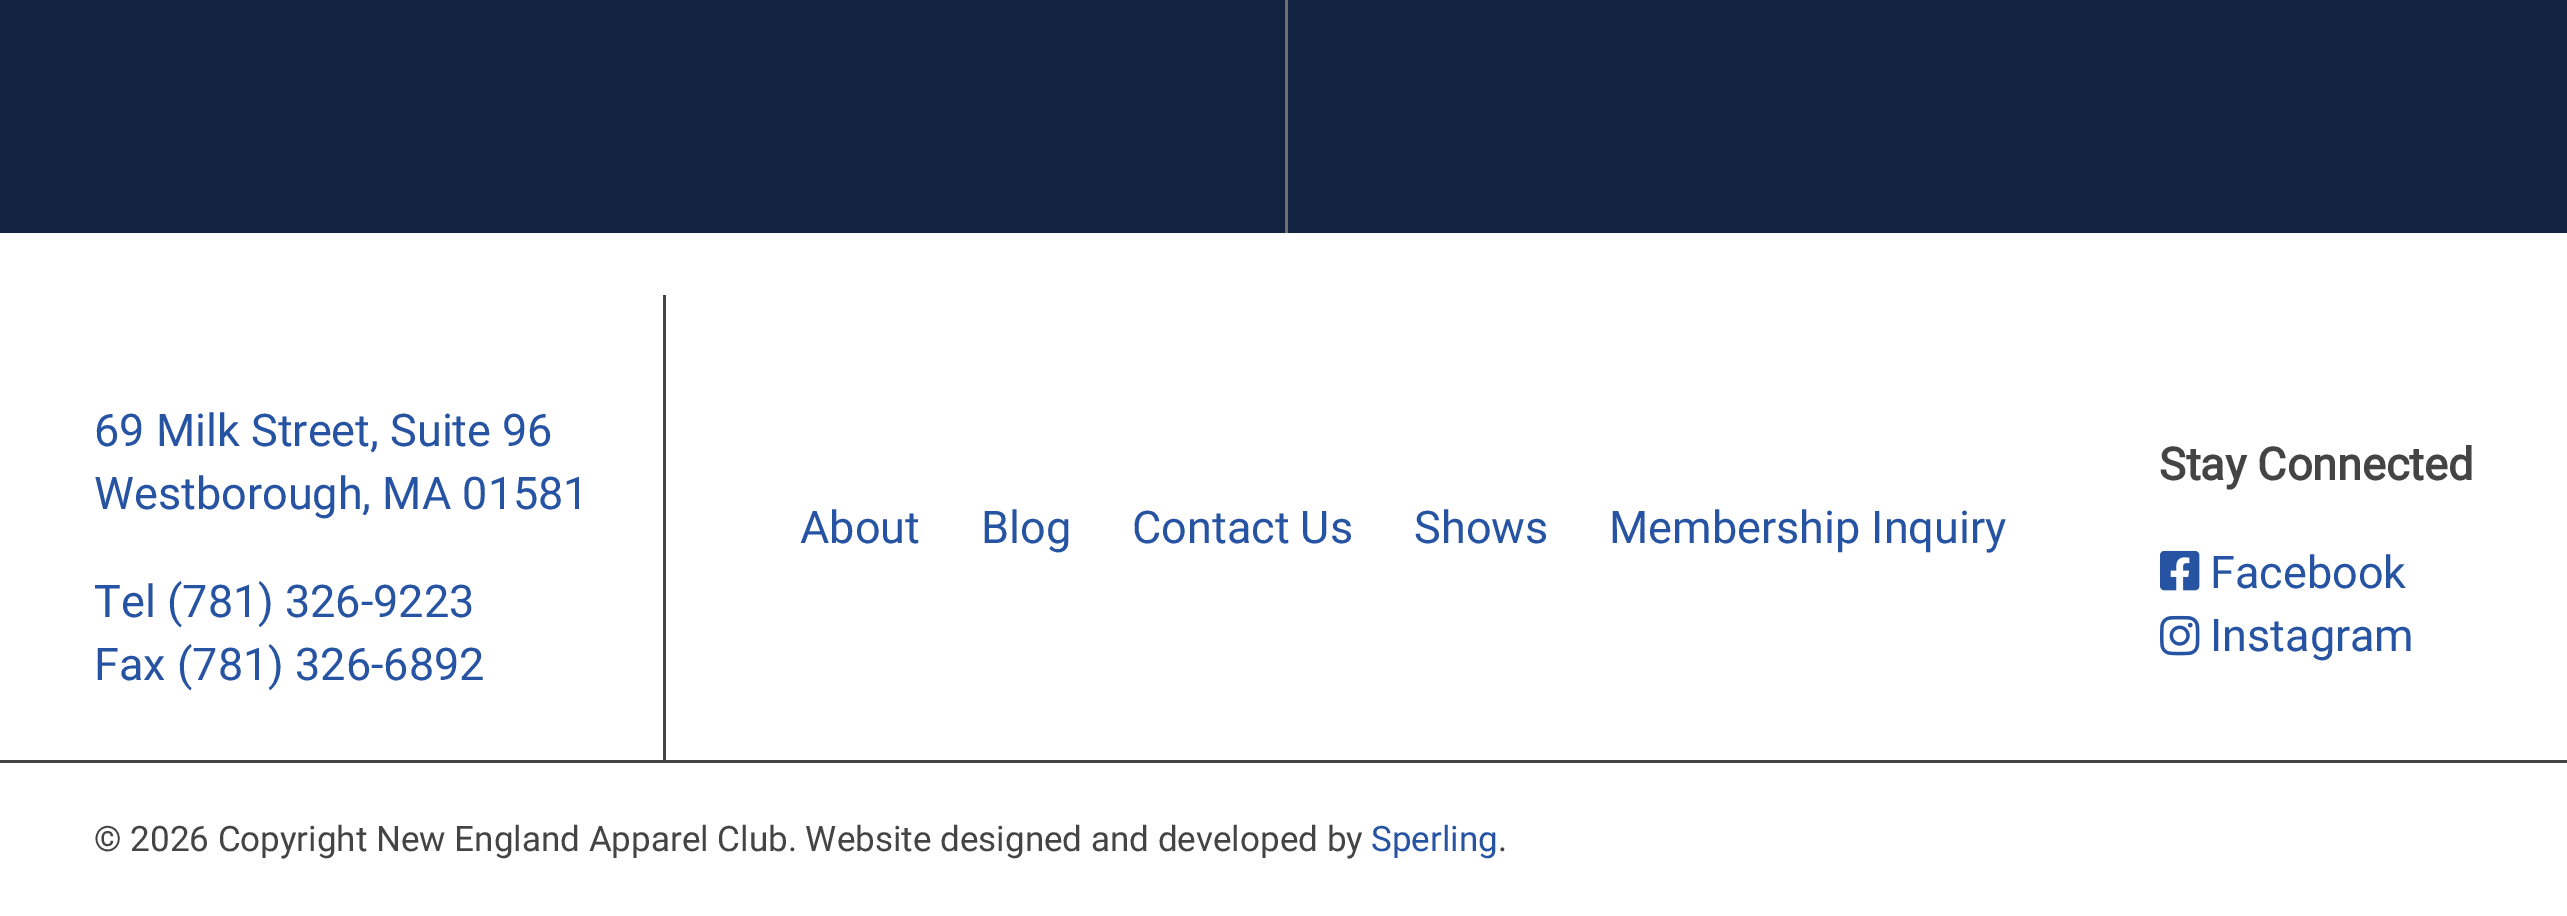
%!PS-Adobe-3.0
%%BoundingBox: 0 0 2567 916
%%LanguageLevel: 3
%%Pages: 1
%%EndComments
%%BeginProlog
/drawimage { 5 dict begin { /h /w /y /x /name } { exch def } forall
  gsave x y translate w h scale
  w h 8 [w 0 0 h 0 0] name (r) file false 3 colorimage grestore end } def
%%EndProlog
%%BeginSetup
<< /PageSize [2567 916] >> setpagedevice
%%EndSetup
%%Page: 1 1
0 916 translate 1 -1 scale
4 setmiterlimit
1 setgray
0 0 2567 916 rectfill
0.071 0.137 0.259 setrgbcolor
0 0 2567 233 rectfill
0.439 setgray
1285 0 3 233 rectfill
0.267 setgray
663 295 3 465 rectfill
(images/1.raw) 2160 550 40 41 drawimage
(images/2.raw) 2160 615 40 41 drawimage
0 760 2567 3 rectfill
/Roboto-Regular [45 0 0 -45 0 0] selectfont
0.149 0.325 0.635 setrgbcolor
94 446 moveto (69 Milk Street, Suite 96) show
94 509 moveto (Westborough, MA 01581) show
94 617 moveto (Tel \(781\) 326-9223) show
94 680 moveto (Fax \(781\) 326-6892) show
800 543 moveto (About) show
981 543 moveto (Blog) show
1132 543 moveto (Contact Us) show
1414 543 moveto (Shows) show
1609 543 moveto (Membership Inquiry) show
/Roboto-Bold [45 0 0 -45 0 0] selectfont
0.267 setgray
2159 480 moveto (Stay Connected) show
/Roboto-Regular [45 0 0 -45 0 0] selectfont
0.149 0.325 0.635 setrgbcolor
2210 588 moveto (Facebook) show
2210 651 moveto (Instagram) show
/Roboto-Regular [35 0 0 -35 0 0] selectfont
0.267 setgray
94 851 moveto (© 2026 Copyright New England Apparel Club. Website designed and developed by) show
0.149 0.325 0.635 setrgbcolor
1371 851 moveto (Sperling) show
0.267 setgray
1498 851 moveto (.) show
showpage
%%EOF
